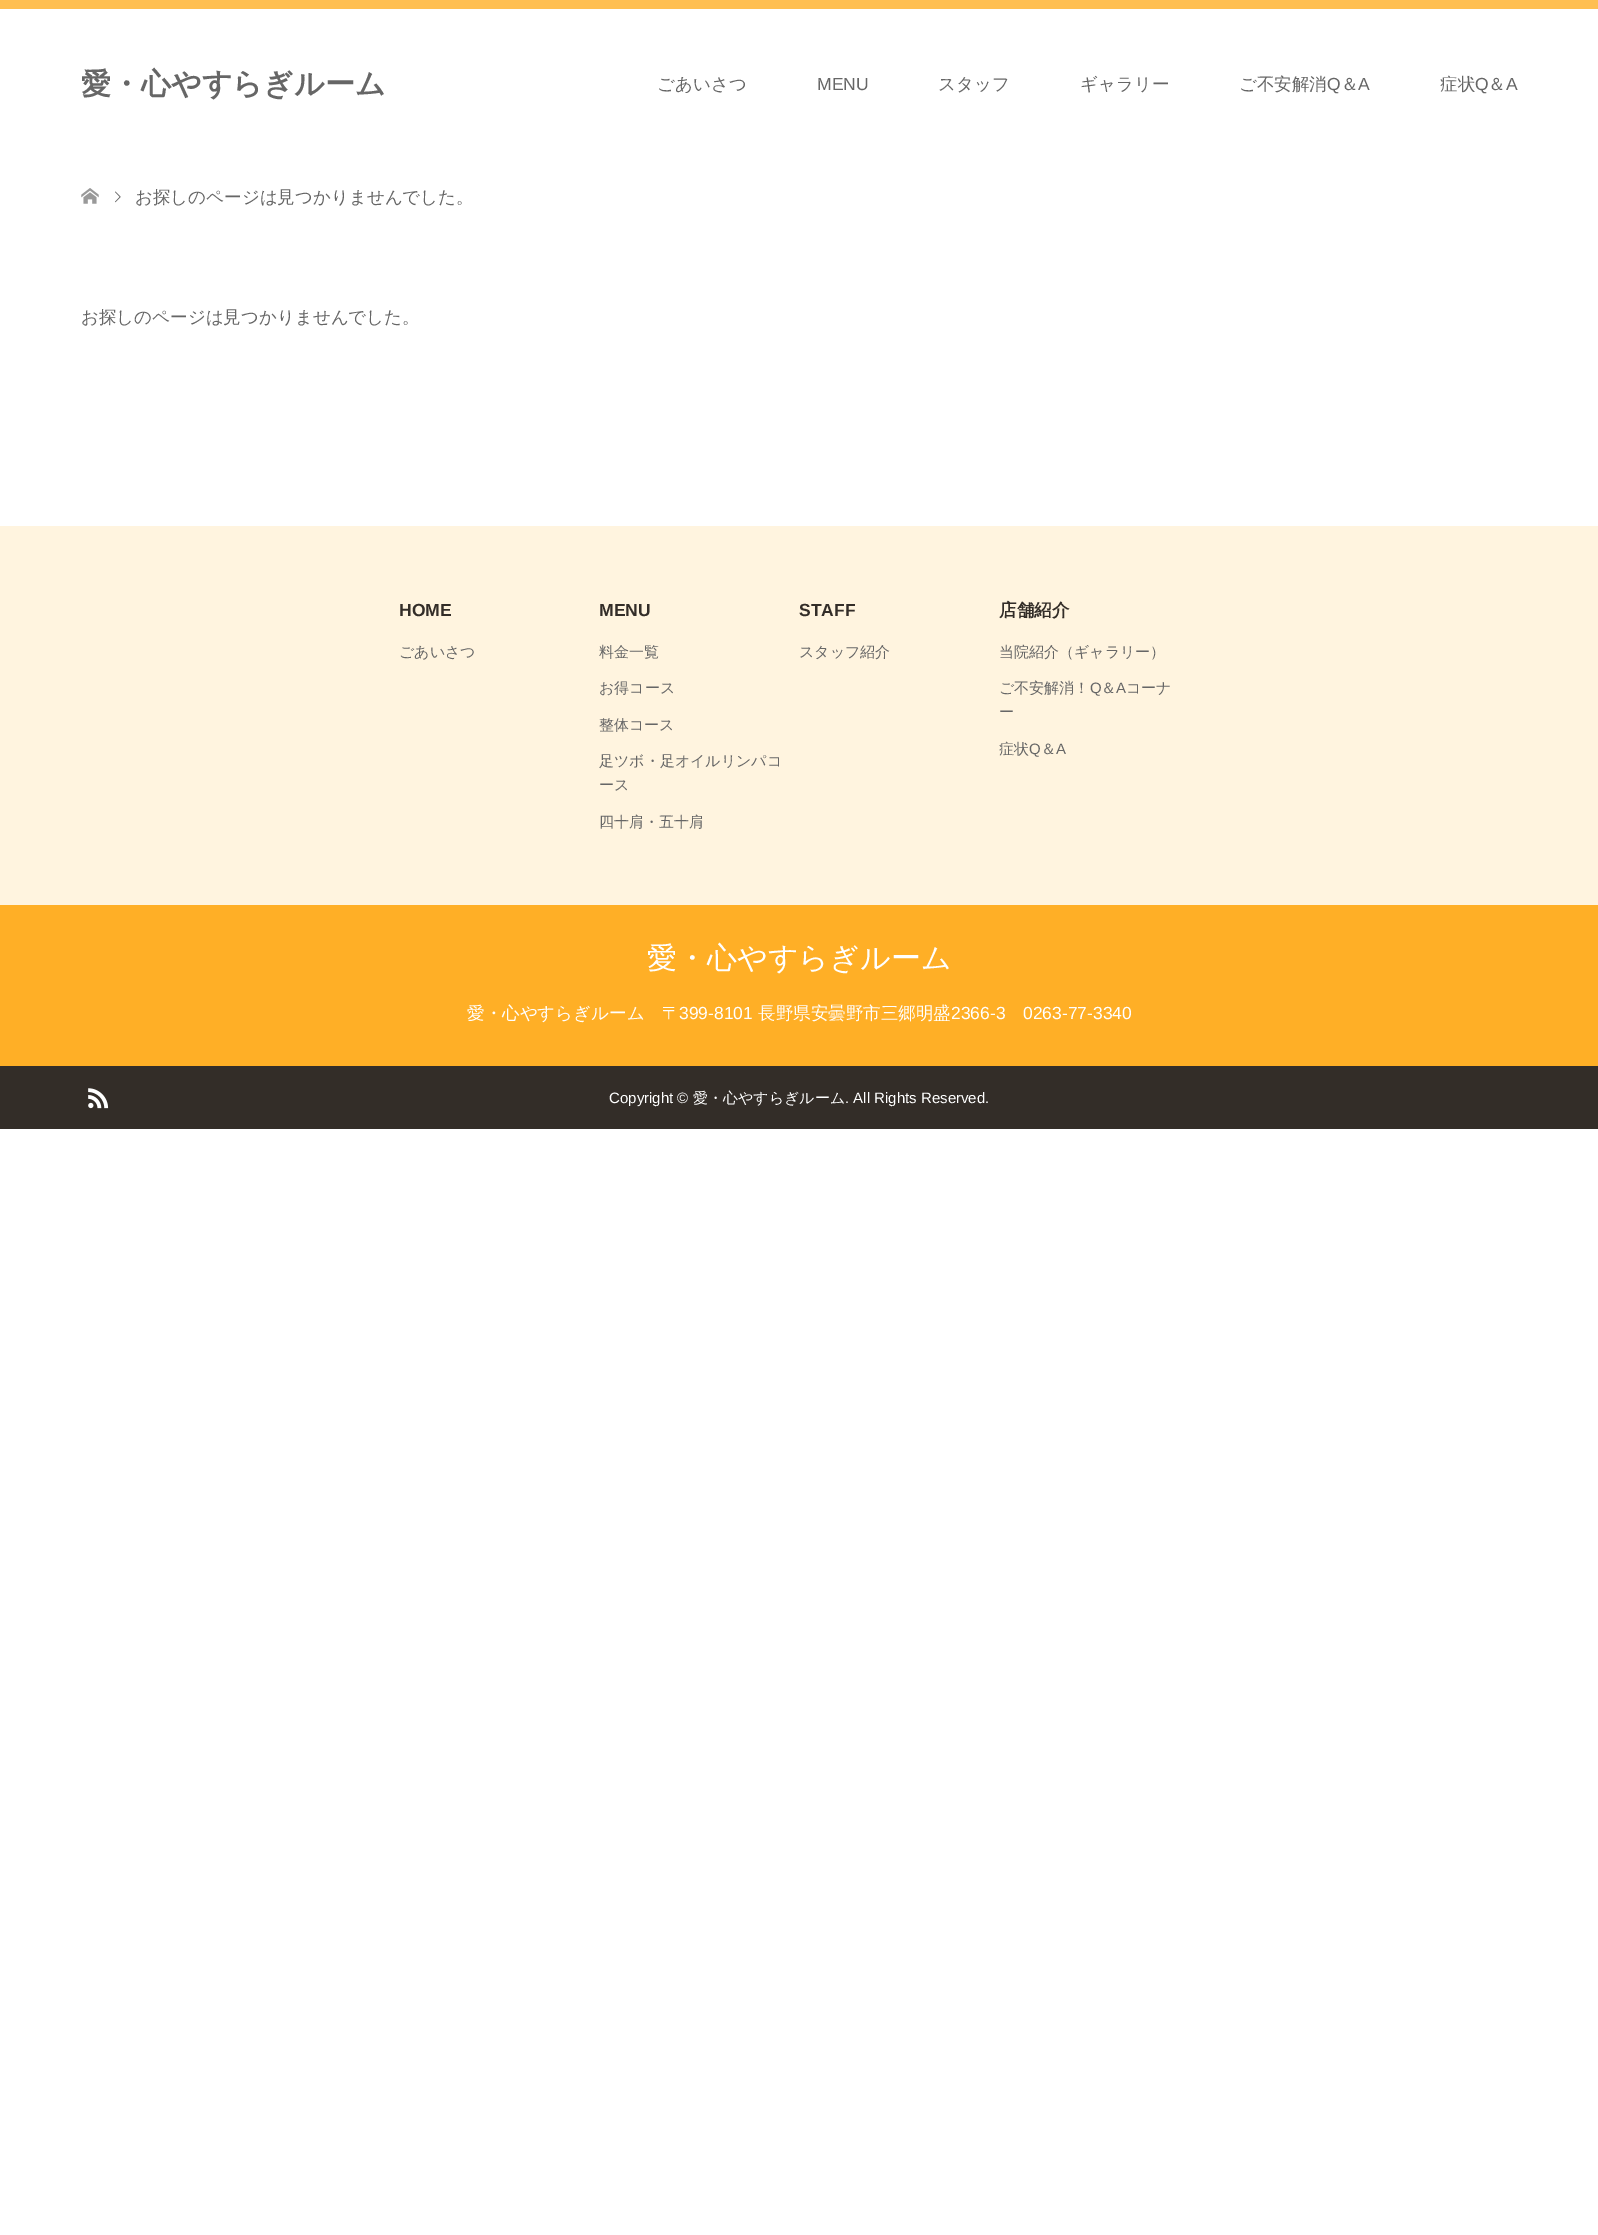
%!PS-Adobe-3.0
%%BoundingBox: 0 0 1598 2235
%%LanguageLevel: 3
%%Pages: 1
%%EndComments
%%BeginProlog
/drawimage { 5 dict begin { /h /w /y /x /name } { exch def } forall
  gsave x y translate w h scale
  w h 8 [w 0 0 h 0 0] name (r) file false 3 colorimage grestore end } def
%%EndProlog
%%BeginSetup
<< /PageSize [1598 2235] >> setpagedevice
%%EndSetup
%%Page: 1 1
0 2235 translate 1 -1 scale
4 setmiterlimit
1 setgray
0 0 1598 2235 rectfill
1 0.749 0.318 setrgbcolor
0 0 1598 9 rectfill
(images/1.raw) 81 188 18 16 drawimage
(images/2.raw) 115 191 6 12 drawimage
1 0.957 0.875 setrgbcolor
0 526 1598 379 rectfill
1 0.686 0.149 setrgbcolor
0 905 1598 161 rectfill
0.2 0.176 0.157 setrgbcolor
0 1066 1598 63 rectfill
(images/3.raw) 88 1088 21 21 drawimage
/WenQuanYiZenHei-Bold [30 0 0 -30 0 0] selectfont
0.4 setgray
81 94 moveto (愛・心やすらぎルーム) show
/WenQuanYiZenHei-Medium [17.5 0 0 -17.5 0 0] selectfont
657 90 moveto (ごあいさつ) show
/LiberationSans-Regular [17.5 0 0 -17.5 0 0] selectfont
817 90 moveto (MENU) show
/WenQuanYiZenHei-Medium [17.5 0 0 -17.5 0 0] selectfont
938 90 moveto (スタッフ) show
1080 90 moveto (ギャラリー) show
1239 90 moveto (ご不安解消) show
/LiberationSans-Regular [17.5 0 0 -17.5 0 0] selectfont
1327 90 moveto (Q) show
/WenQuanYiZenHei-Medium [17.5 0 0 -17.5 0 0] selectfont
1341 90 moveto (＆) show
/LiberationSans-Regular [17.5 0 0 -17.5 0 0] selectfont
1358 90 moveto (A) show
/WenQuanYiZenHei-Medium [17.5 0 0 -17.5 0 0] selectfont
1440 90 moveto (症状) show
/LiberationSans-Regular [17.5 0 0 -17.5 0 0] selectfont
1475 90 moveto (Q) show
/WenQuanYiZenHei-Medium [17.5 0 0 -17.5 0 0] selectfont
1488 90 moveto (＆) show
/LiberationSans-Regular [17.5 0 0 -17.5 0 0] selectfont
1506 90 moveto (A) show
/WenQuanYiZenHei-Medium [17.5 0 0 -17.5 0 0] selectfont
135 203 moveto (お探しのページは見つかりませんでした。) show
81 323 moveto (お探しのページは見つかりませんでした。) show
/LiberationSans-Bold [17.5 0 0 -17.5 0 0] selectfont
0.2 0.176 0.157 setrgbcolor
399 616 moveto (HOME) show
/WenQuanYiZenHei-Medium [15 0 0 -15 0 0] selectfont
0.4 setgray
399 657 moveto (ごあいさつ) show
/LiberationSans-Bold [17.5 0 0 -17.5 0 0] selectfont
0.2 0.176 0.157 setrgbcolor
599 616 moveto (MENU) show
/WenQuanYiZenHei-Medium [15 0 0 -15 0 0] selectfont
0.4 setgray
599 657 moveto (料金一覧) show
599 693 moveto (お得コース) show
599 730 moveto (整体コース) show
599 766 moveto (足ツボ・足オイルリンパコ) show
599 790 moveto (ース) show
599 827 moveto (四十肩・五十肩) show
/LiberationSans-Bold [17.5 0 0 -17.5 0 0] selectfont
0.2 0.176 0.157 setrgbcolor
799 616 moveto (STAFF) show
/WenQuanYiZenHei-Medium [15 0 0 -15 0 0] selectfont
0.4 setgray
799 657 moveto (スタッフ紹介) show
/WenQuanYiZenHei-Bold [17.5 0 0 -17.5 0 0] selectfont
0.2 0.176 0.157 setrgbcolor
999 616 moveto (店舗紹介) show
/WenQuanYiZenHei-Medium [15 0 0 -15 0 0] selectfont
0.4 setgray
999 657 moveto (当院紹介（ギャラリー）) show
999 693 moveto (ご不安解消！) show
/LiberationSans-Regular [15 0 0 -15 0 0] selectfont
1090 693 moveto (Q) show
/WenQuanYiZenHei-Medium [15 0 0 -15 0 0] selectfont
1101 693 moveto (＆) show
/LiberationSans-Regular [15 0 0 -15 0 0] selectfont
1116 693 moveto (A) show
/WenQuanYiZenHei-Medium [15 0 0 -15 0 0] selectfont
1126 693 moveto (コーナ) show
999 717 moveto (ー) show
999 754 moveto (症状) show
/LiberationSans-Regular [15 0 0 -15 0 0] selectfont
1029 754 moveto (Q) show
/WenQuanYiZenHei-Medium [15 0 0 -15 0 0] selectfont
1041 754 moveto (＆) show
/LiberationSans-Regular [15 0 0 -15 0 0] selectfont
1056 754 moveto (A) show
/WenQuanYiZenHei-Medium [30 0 0 -30 0 0] selectfont
1 setgray
647 968 moveto (愛・心やすらぎルーム) show
/WenQuanYiZenHei-Medium [17.5 0 0 -17.5 0 0] selectfont
467 1019 moveto (愛・心やすらぎルーム) show
662 1019 moveto (〒) show
/LiberationSans-Regular [17.5 0 0 -17.5 0 0] selectfont
679 1019 moveto (399-8101) show
/WenQuanYiZenHei-Medium [17.5 0 0 -17.5 0 0] selectfont
758 1019 moveto (長野県安曇野市三郷明盛) show
/LiberationSans-Regular [17.5 0 0 -17.5 0 0] selectfont
951 1019 moveto (2366-3) show
1023 1019 moveto (0263-77-3340) show
/LiberationSans-Regular [15 0 0 -15 0 0] selectfont
609 1103 moveto (Copyright ©) show
/WenQuanYiZenHei-Medium [15 0 0 -15 0 0] selectfont
693 1103 moveto (愛・心やすらぎルーム) show
/LiberationSans-Regular [15 0 0 -15 0 0] selectfont
845 1103 moveto (. All Rights Reserved.) show
showpage
%%EOF
